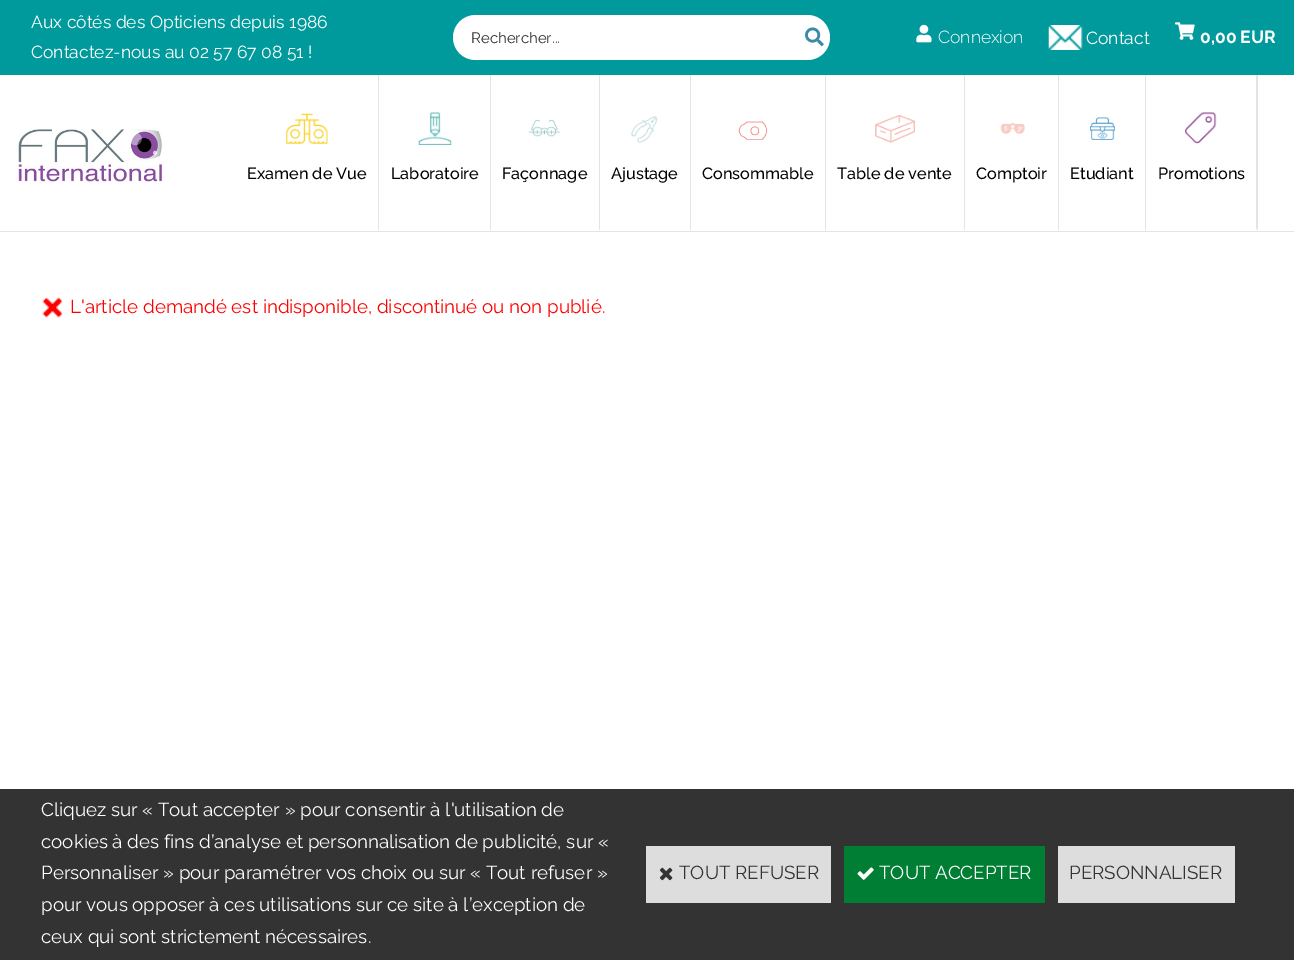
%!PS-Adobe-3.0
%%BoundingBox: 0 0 1294 960
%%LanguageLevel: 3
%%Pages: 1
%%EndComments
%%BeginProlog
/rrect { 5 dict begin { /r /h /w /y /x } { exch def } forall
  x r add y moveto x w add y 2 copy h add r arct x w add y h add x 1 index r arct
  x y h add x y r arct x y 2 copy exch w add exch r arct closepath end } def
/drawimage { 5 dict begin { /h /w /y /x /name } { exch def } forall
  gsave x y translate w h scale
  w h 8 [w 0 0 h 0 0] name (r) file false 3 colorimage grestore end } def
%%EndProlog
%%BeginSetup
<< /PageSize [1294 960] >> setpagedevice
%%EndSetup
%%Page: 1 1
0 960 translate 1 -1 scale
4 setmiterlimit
1 setgray
0 0 1294 960 rectfill
0.894 setgray
0 231 1294 1 rectfill
0 0.604 0.612 setrgbcolor
0 0 1294 75 rectfill
1 setgray
453 15 377 45 22.5 rrect fill
(images/1.raw) 805 27 19 20 drawimage
(images/2.raw) 916 24 16 19 drawimage
(images/3.raw) 1048 25 35 25 drawimage
(images/4.raw) 1175 22 20 18 drawimage
(images/5.raw) 18 129 147 53 drawimage
0.894 setgray
newpath 379 75 moveto 379 231 lineto 378 228 lineto 378 75 lineto closepath fill
(images/6.raw) 286 113 42 31 drawimage
newpath 491 75 moveto 491 231 lineto 490 228 lineto 490 75 lineto closepath fill
(images/7.raw) 418 112 34 33 drawimage
newpath 600 75 moveto 600 231 lineto 599 228 lineto 599 75 lineto closepath fill
(images/8.raw) 528 120 32 17 drawimage
newpath 691 75 moveto 691 231 lineto 690 228 lineto 690 75 lineto closepath fill
(images/9.raw) 631 116 27 27 drawimage
newpath 826 75 moveto 826 231 lineto 825 228 lineto 825 75 lineto closepath fill
(images/10.raw) 738 121 30 19 drawimage
newpath 965 75 moveto 965 231 lineto 964 228 lineto 964 75 lineto closepath fill
(images/11.raw) 875 115 40 28 drawimage
newpath 1059 75 moveto 1059 231 lineto 1058 228 lineto 1058 75 lineto closepath fill
(images/12.raw) 1000 122 25 12 drawimage
newpath 1146 75 moveto 1146 231 lineto 1145 228 lineto 1145 75 lineto closepath fill
(images/13.raw) 1090 117 25 23 drawimage
newpath 1258 75 moveto 1258 231 lineto 1256 228 lineto 1256 75 lineto closepath fill
(images/14.raw) 1185 112 32 32 drawimage
(images/15.raw) 42 297 21 21 drawimage
0.2 setgray
0 789 1294 171 rectfill
0.867 setgray
646 846 185 57 rectfill
(images/16.raw) 659 867 14 14 drawimage
0 0.494 0.2 setrgbcolor
844 846 201 57 rectfill
(images/17.raw) 857 867 17 13 drawimage
0.867 setgray
1058 846 177 57 rectfill
/Raleway-Regular [17.5 0 0 -17.5 0 0] selectfont
1 setgray
31 28 moveto (Aux côtés des Opticiens depuis 1986) show
31 58 moveto (Contactez-nous au 02 57 67 08 51 !) show
/Raleway-Regular [15 0 0 -15 0 0] selectfont
0.2 setgray
471 43 moveto (Rechercher...) show
/Raleway-Light [17.5 0 0 -17.5 0 0] selectfont
1 setgray
938 43 moveto (Connexion) show
/Raleway-Regular [17.5 0 0 -17.5 0 0] selectfont
1086 44 moveto (Contact) show
/Raleway-Bold [17.5 0 0 -17.5 0 0] selectfont
1200 43 moveto (0,00 EUR) show
/Raleway-Medium [16.25 0 0 -16.25 0 0] selectfont
0 setgray
247 179 moveto (Examen de Vue) show
391 179 moveto (Laboratoire) show
502 179 moveto (Façonnage) show
611 179 moveto (Ajustage) show
702 179 moveto (Consommable) show
837 179 moveto (Table de vente) show
976 179 moveto (Comptoir) show
1070 179 moveto (Etudiant) show
1158 179 moveto (Promotions) show
/Raleway-Regular [18.75 0 0 -18.75 0 0] selectfont
1 0 0 setrgbcolor
70 313 moveto (L'article demandé est indisponible, discontinué ou non publié.) show
1 setgray
41 816 moveto (Cliquez sur « Tout accepter » pour consentir à l'utilisation de) show
41 848 moveto (cookies à des fins d’analyse et personnalisation de publicité, sur «) show
41 879 moveto (Personnaliser » pour paramétrer vos choix ou sur « Tout refuser ») show
41 911 moveto (pour vous opposer à ces utilisations sur ce site à l’exception de) show
41 943 moveto (ceux qui sont strictement nécessaires.) show
0.2 setgray
679 879 moveto (TOUT REFUSER) show
1 setgray
879 879 moveto (TOUT ACCEPTER) show
0.2 setgray
1069 879 moveto (PERSONNALISER) show
showpage
%%EOF
